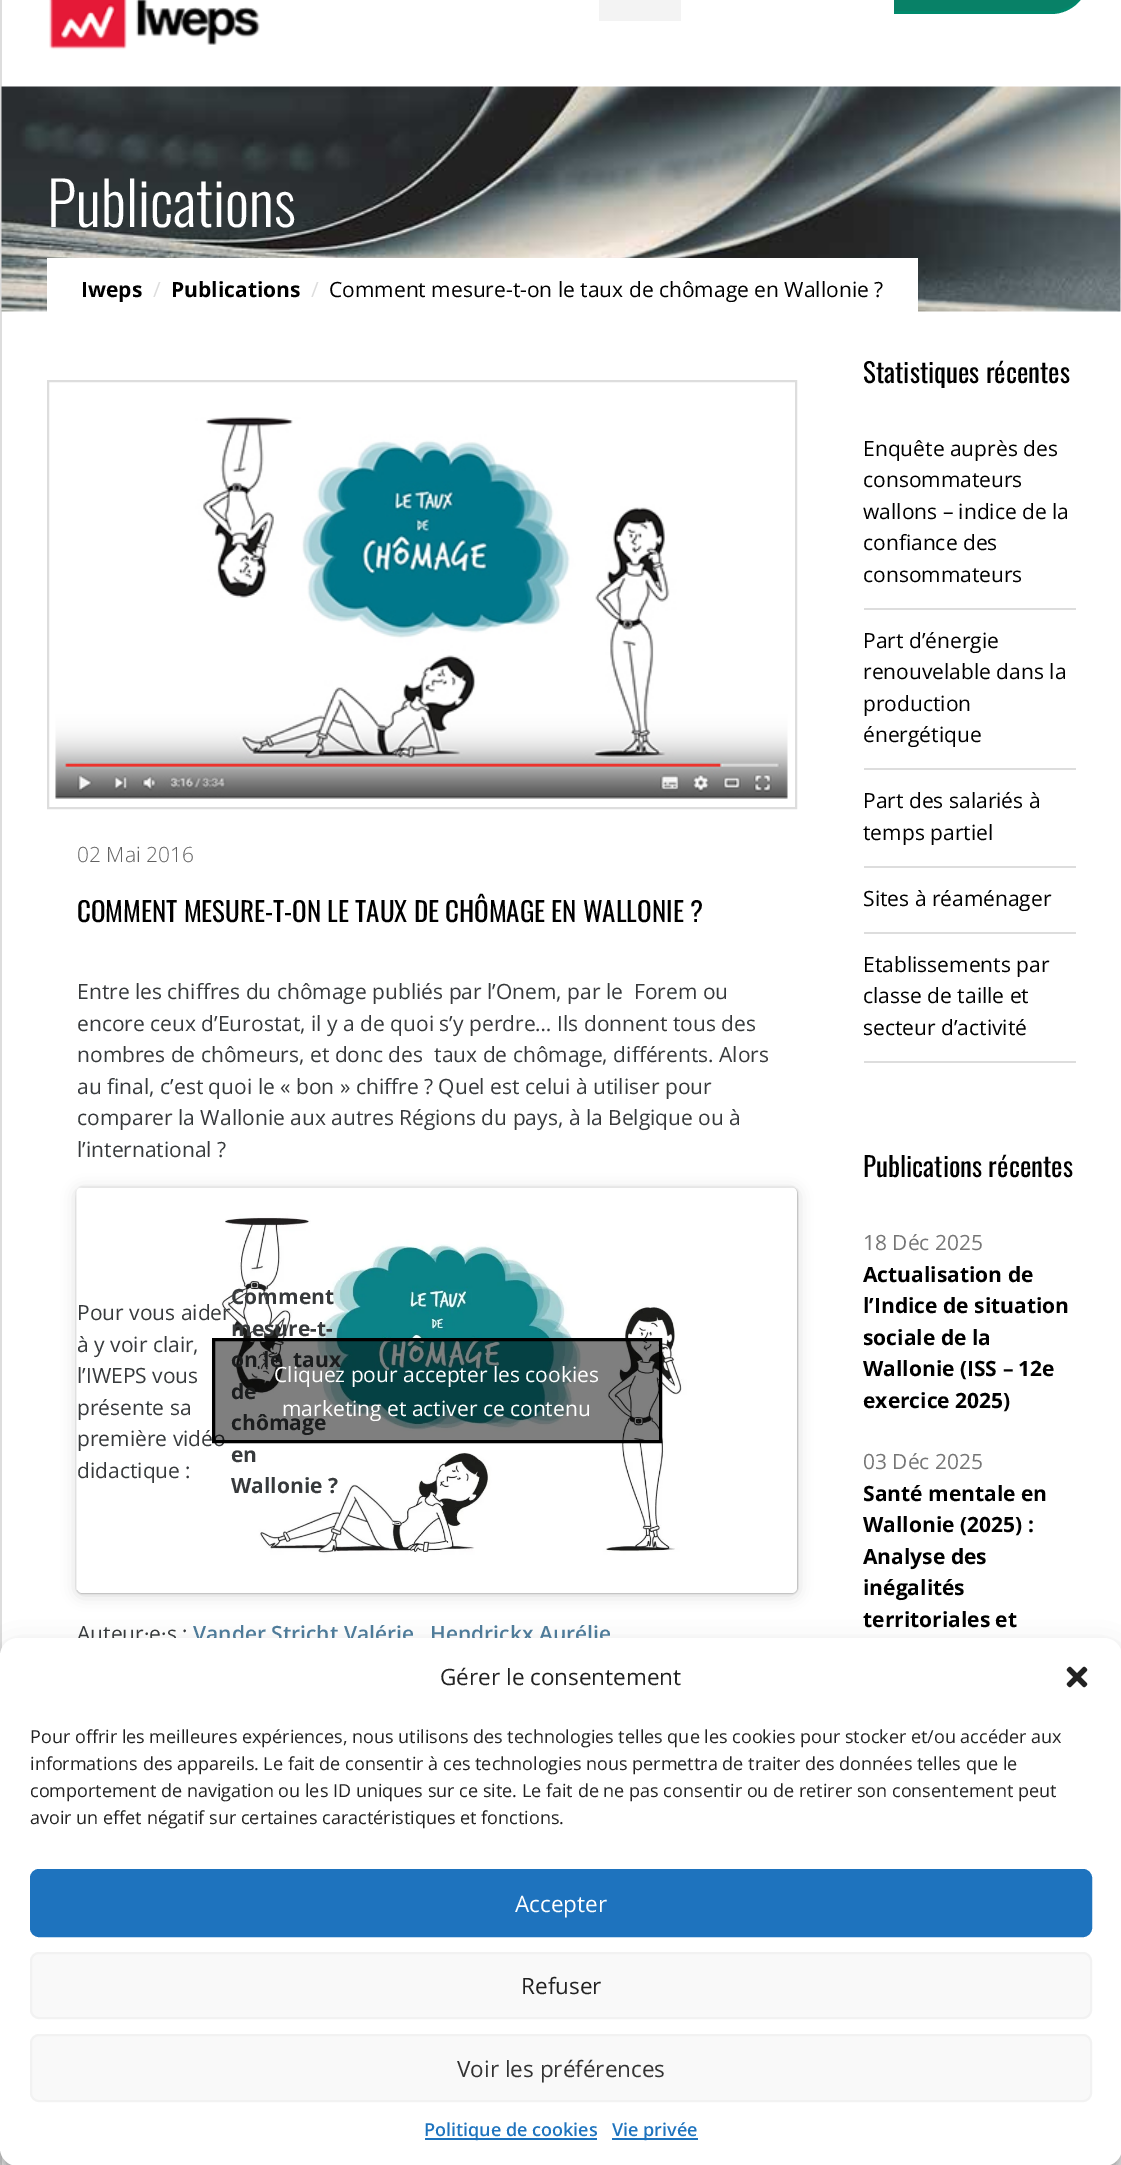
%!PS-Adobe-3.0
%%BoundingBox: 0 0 1121 2165
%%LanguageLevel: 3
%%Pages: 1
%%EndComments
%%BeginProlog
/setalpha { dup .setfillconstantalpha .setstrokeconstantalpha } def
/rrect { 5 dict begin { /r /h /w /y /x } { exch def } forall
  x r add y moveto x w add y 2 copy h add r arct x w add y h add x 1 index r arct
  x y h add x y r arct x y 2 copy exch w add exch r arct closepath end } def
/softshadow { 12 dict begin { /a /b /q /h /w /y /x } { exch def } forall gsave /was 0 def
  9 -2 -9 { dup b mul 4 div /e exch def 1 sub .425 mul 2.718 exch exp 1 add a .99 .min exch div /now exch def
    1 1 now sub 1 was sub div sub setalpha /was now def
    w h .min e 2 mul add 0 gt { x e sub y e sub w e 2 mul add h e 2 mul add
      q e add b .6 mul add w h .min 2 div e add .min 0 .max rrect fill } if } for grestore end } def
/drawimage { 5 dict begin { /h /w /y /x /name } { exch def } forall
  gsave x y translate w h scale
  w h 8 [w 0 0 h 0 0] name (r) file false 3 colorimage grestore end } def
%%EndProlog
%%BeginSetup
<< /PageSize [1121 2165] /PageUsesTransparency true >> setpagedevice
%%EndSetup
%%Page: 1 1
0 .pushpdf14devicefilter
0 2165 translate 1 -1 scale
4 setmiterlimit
1 setgray
0 0 1121 2165 rectfill
0.867 setgray
0 0 2 2165 rectfill
0 0.541 0.424 setrgbcolor
newpath 932 -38 moveto 1089 -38 lineto 1089 -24 lineto 1089 -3 1072 14 1051 14 curveto 894 14 lineto 894 0 lineto 894 -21 911 -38 932 -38 curveto closepath fill
0.031 0.506 0.404 setrgbcolor
newpath 932 -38 moveto 1089 -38 lineto 1089 -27 lineto 1089 -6 1072 11 1051 11 curveto 894 11 lineto 894 0 lineto 894 -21 911 -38 932 -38 curveto closepath fill
(images/1.raw) 49 0 211 50 drawimage
0.953 setgray
599 0 82 21 rectfill
(images/2.raw) 1 86 1120 226 drawimage
1 setgray
47 258 871 54 rectfill
0.867 setgray
2 setlinewidth
48 381 748 427 rectstroke
(images/3.raw) 55 417 733 382 drawimage
0 setgray
77 1190 720 405 5 7.5 0.15 softshadow
77 1188 720 405 5 1 0.5 softshadow
1 setgray
77 1188 720 405 5 rrect fill
(images/4.raw) 76 1187 721 403 drawimage
0.867 setgray
864 608 212 2 rectfill
864 768 212 2 rectfill
864 866 212 2 rectfill
864 932 212 2 rectfill
864 1061 212 2 rectfill
0 setgray
0 1647 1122 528 18 4.5 0.23 softshadow
0 1653 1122 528 18 15 0.19 softshadow
/Oswald-Light [60 0 0 -60 0 0] selectfont
1 setgray
47 227 moveto (Publications) show
/OpenSans-Bold [21 0 0 -21 0 0] selectfont
0 setgray
81 297 moveto (Iweps) show
/OpenSans-Regular [21 0 0 -21 0 0] selectfont
0.867 setgray
153 297 moveto (/) show
/OpenSans-Bold [21 0 0 -21 0 0] selectfont
0 setgray
171 297 moveto (Publications) show
/OpenSans-Regular [21 0 0 -21 0 0] selectfont
0.867 setgray
311 297 moveto (/) show
0 setgray
329 297 moveto (Comment mesure-t-on le taux de chômage en Wallonie ?) show
/OpenSans-Light [21 0 0 -21 0 0] selectfont
0.38 setgray
77 862 moveto (02 Mai 2016) show
/Oswald-Regular [27 0 0 -27 0 0] selectfont
0 setgray
77 922 moveto (COMMENT MESURE-T-ON LE TAUX DE CHÔMAGE EN WALLONIE ?) show
/OpenSans-Regular [21 0 0 -21 0 0] selectfont
0.216 0.227 0.235 setrgbcolor
77 999 moveto (Entre les chiffres du chômage publiés par l’Onem, par le  Forem ou) show
77 1031 moveto (encore ceux d’Eurostat, il y a de quoi s’y perdre… Ils donnent tous des) show
77 1062 moveto (nombres de chômeurs, et donc des  taux de chômage, différents. Alors) show
77 1094 moveto (au final, c’est quoi le « bon » chiffre ? Quel est celui à utiliser pour) show
77 1125 moveto (comparer la Wallonie aux autres Régions du pays, à la Belgique ou à) show
77 1157 moveto (l’international ?) show
77 1320 moveto (Pour vous aider) show
/OpenSans-Bold [21 0 0 -21 0 0] selectfont
231 1304 moveto (Comment) show
231 1336 moveto (mesure-t-) show
231 1367 moveto (on le  taux) show
231 1399 moveto (de) show
231 1430 moveto (chômage) show
231 1462 moveto (en) show
231 1493 moveto (Wallonie ?) show
/OpenSans-Regular [21 0 0 -21 0 0] selectfont
77 1352 moveto (à y voir clair,) show
77 1383 moveto (l’IWEPS vous) show
77 1415 moveto (présente sa) show
77 1446 moveto (première vidéo) show
0.5 setalpha
0 setgray
newpath 213.5 1339.5 moveto 660.5 1339.5 lineto 660.5 1441.5 lineto 213.5 1441.5 lineto closepath fill
1 setalpha
3 setlinewidth
newpath 213.5 1339.5 moveto 660.5 1339.5 lineto 660.5 1441.5 lineto 213.5 1441.5 lineto closepath stroke
1 setgray
282 1416 moveto (marketing et activer ce contenu) show
274 1382 moveto (Cliquez pour accepter les cookies) show
0.216 0.227 0.235 setrgbcolor
77 1478 moveto (didactique :) show
77 1641 moveto (Auteur·e·s :) show
/OpenSans-SemiBold [21 0 0 -21 0 0] selectfont
0.306 0.482 0.6 setrgbcolor
193 1641 moveto (Vander Stricht Valérie) show
430 1641 moveto (Hendrickx Aurélie) show
/Oswald-Regular [27 0 0 -27 0 0] selectfont
0 setgray
863 383 moveto (Statistiques récentes) show
/OpenSans-Regular [21 0 0 -21 0 0] selectfont
863 456 moveto (Enquête auprès des) show
863 487 moveto (consommateurs) show
863 519 moveto (wallons – indice de la) show
863 550 moveto (confiance des) show
863 582 moveto (consommateurs) show
863 648 moveto (Part d’énergie) show
863 679 moveto (renouvelable dans la) show
863 711 moveto (production) show
863 742 moveto (énergétique) show
863 808 moveto (Part des salariés à) show
863 840 moveto (temps partiel) show
863 906 moveto (Sites à réaménager) show
863 972 moveto (Etablissements par) show
863 1003 moveto (classe de taille et) show
863 1035 moveto (secteur d’activité) show
/Oswald-Regular [27 0 0 -27 0 0] selectfont
863 1177 moveto (Publications récentes) show
/OpenSans-Regular [21 0 0 -21 0 0] selectfont
0.463 setgray
863 1250 moveto (18 Déc 2025) show
/OpenSans-Bold [21 0 0 -21 0 0] selectfont
0 setgray
863 1282 moveto (Actualisation de) show
863 1313 moveto (l’Indice de situation) show
863 1345 moveto (sociale de la) show
863 1376 moveto (Wallonie \(ISS – 12e) show
863 1408 moveto (exercice 2025\)) show
/OpenSans-Regular [21 0 0 -21 0 0] selectfont
0.463 setgray
863 1469 moveto (03 Déc 2025) show
/OpenSans-Bold [21 0 0 -21 0 0] selectfont
0 setgray
863 1501 moveto (Santé mentale en) show
863 1532 moveto (Wallonie \(2025\) :) show
863 1564 moveto (Analyse des) show
863 1595 moveto (inégalités) show
863 1627 moveto (territoriales et) show
1 setgray
0 1638 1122 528 18 rrect fill
/OpenSans-Regular [22.5 0 0 -22.5 0 0] selectfont
0.133 setgray
440 1685 moveto (Gérer le consentement) show
(images/5.raw) 1066 1666 22 22 drawimage
/OpenSans-Regular [18 0 0 -18 0 0] selectfont
30 1743 moveto (Pour offrir les meilleures expériences, nous utilisons des technologies telles que les cookies pour stocker et/ou accéder aux) show
30 1770 moveto (informations des appareils. Le fait de consentir à ces technologies nous permettra de traiter des données telles que le) show
30 1797 moveto (comportement de navigation ou les ID uniques sur ce site. Le fait de ne pas consentir ou de retirer son consentement peut) show
30 1824 moveto (avoir un effet négatif sur certaines caractéristiques et fonctions.) show
0.118 0.451 0.745 setrgbcolor
31 1870 1060 66 8 rrect gsave fill grestore
2 setlinewidth
stroke
/OpenSans-Regular [22.5 0 0 -22.5 0 0] selectfont
1 setgray
515 1912 moveto (Accepter) show
0.976 setgray
31 1953 1060 65 8 rrect gsave fill grestore
0.949 setgray
stroke
0.133 setgray
521 1994 moveto (Refuser) show
0.976 setgray
31 2035 1060 66 8 rrect gsave fill grestore
0.949 setgray
stroke
0.2 setgray
457 2077 moveto (Voir les préférences) show
0.118 0.451 0.745 setrgbcolor
425 2138 172 2 rectfill
/OpenSans-SemiBold [18 0 0 -18 0 0] selectfont
424 2136 moveto (Politique de cookies) show
612 2138 86 2 rectfill
612 2136 moveto (Vie privée) show
.poppdf14devicefilter showpage
%%EOF
